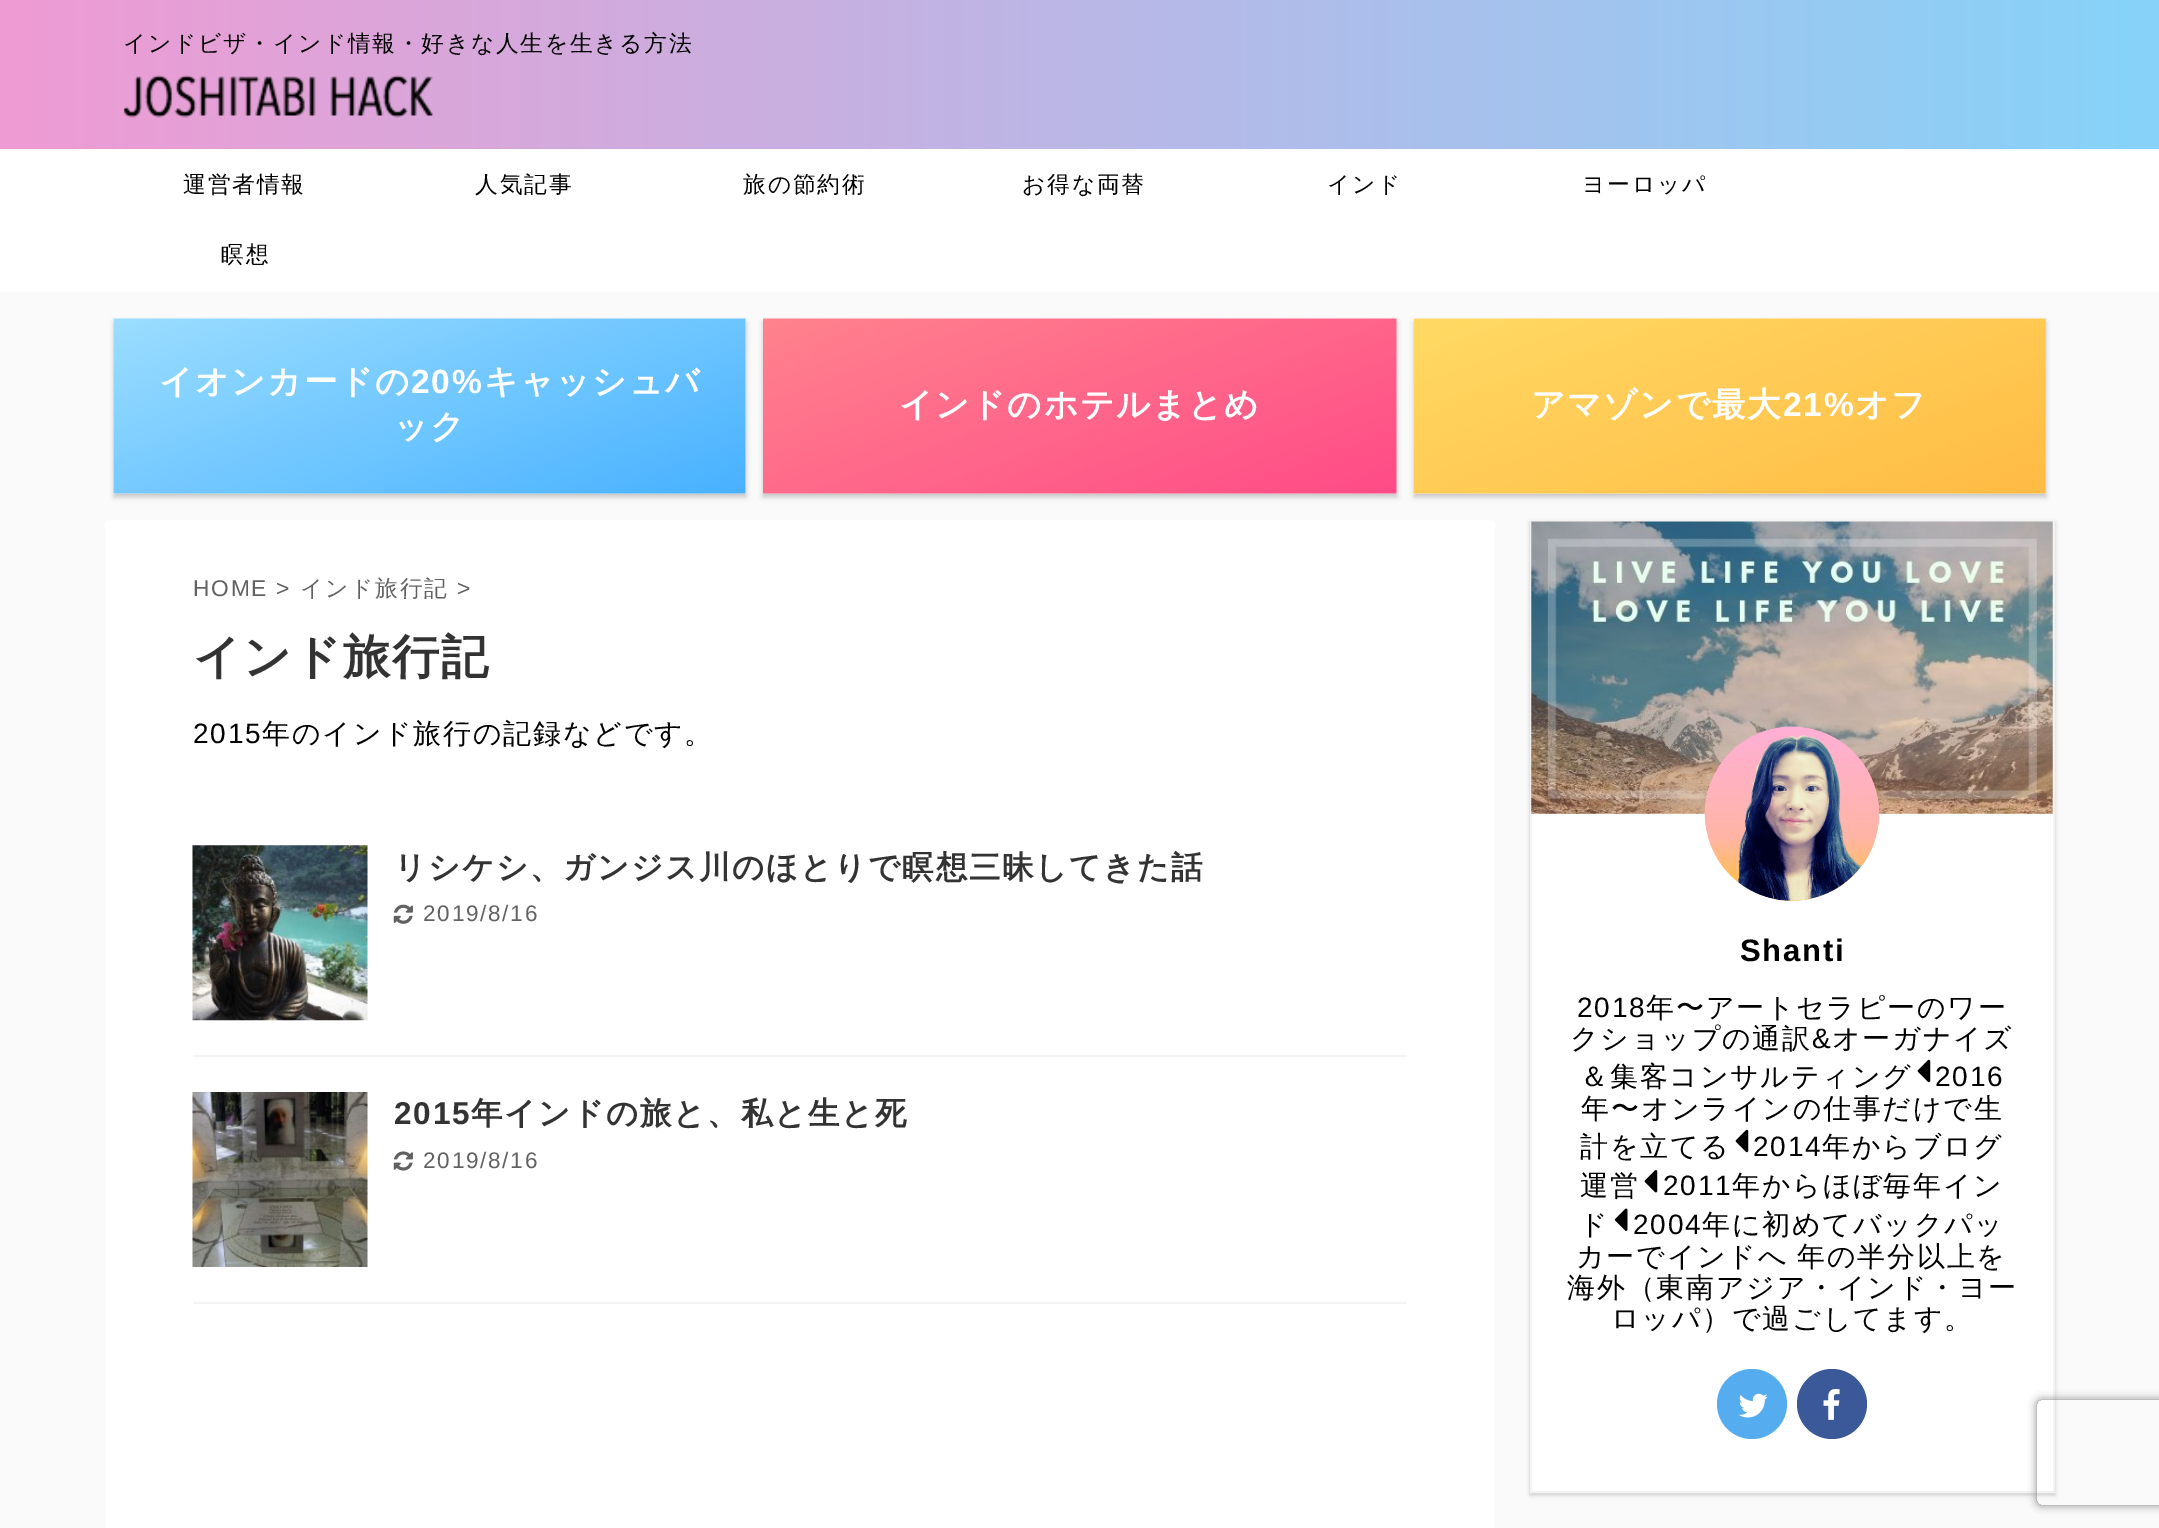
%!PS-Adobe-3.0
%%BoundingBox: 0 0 2159 1528
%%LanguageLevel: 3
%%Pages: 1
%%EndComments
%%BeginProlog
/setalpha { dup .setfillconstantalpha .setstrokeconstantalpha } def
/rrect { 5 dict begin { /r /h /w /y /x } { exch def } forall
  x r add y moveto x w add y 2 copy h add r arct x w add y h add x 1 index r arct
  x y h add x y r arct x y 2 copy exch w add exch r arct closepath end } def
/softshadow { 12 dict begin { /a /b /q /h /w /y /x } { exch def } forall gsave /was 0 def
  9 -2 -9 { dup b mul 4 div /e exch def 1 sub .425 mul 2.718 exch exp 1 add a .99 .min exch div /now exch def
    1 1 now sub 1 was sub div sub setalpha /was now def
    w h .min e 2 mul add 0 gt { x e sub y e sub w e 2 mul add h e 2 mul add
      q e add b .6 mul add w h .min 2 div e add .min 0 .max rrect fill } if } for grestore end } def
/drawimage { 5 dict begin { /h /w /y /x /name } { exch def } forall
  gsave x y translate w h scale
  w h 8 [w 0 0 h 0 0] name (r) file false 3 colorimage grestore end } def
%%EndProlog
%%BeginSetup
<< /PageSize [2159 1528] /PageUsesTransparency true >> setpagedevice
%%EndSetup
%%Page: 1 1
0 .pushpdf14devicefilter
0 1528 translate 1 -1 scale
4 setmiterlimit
0.98 setgray
0 0 2159 1528 rectfill
gsave newpath 0 0 moveto 2159 0 lineto 2159 149 lineto 0 149 lineto closepath clip newpath
<< /ShadingType 2 /ColorSpace /DeviceRGB /Coords [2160 74 0 74] /Extend [true true] /Function << /FunctionType 2 /Domain [0 1] /C0 [0.525 0.827 0.976] /C1 [0.937 0.608 0.827] /N 1 >> >> shfill grestore
(images/1.raw) 123 75 310 43 drawimage
1 setgray
0 149 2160 143 2 rrect fill
0 setgray
114 322 632 175 0 2.5 0.2 softshadow
(images/2.raw) 113 318 633 176 drawimage
763 322 634 175 0 2.5 0.2 softshadow
(images/3.raw) 763 318 634 176 drawimage
1414 322 632 175 0 2.5 0.2 softshadow
(images/4.raw) 1414 318 632 176 drawimage
1 setgray
105 520 1390 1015 7 rrect fill
0.953 setgray
193 1055 1214 2 rectfill
(images/5.raw) 192 845 176 176 drawimage
(images/6.raw) 393 904 20 20 drawimage
193 1302 1214 2 rectfill
(images/7.raw) 192 1092 176 175 drawimage
(images/8.raw) 393 1151 20 20 drawimage
0 setgray
1530 522 525 973 0 2 0.2 softshadow
1 setgray
newpath 1531 521 moveto 2054 521 lineto 2054 1492 lineto 1531 1492 lineto closepath gsave fill grestore
0.953 setgray
2 setlinewidth
stroke
(images/9.raw) 1531 521 522 293 drawimage
(images/10.raw) 1704 726 176 176 drawimage
(images/11.raw) 1917 1059 14 24 drawimage
(images/11.raw) 1735 1129 14 24 drawimage
(images/12.raw) 1644 1170 14 23 drawimage
(images/13.raw) 1614 1208 14 23 drawimage
0.333 0.675 0.933 setrgbcolor
newpath 1752 1404 35 0 360 arc closepath fill
(images/14.raw) 1738 1393 30 25 drawimage
0.231 0.349 0.596 setrgbcolor
newpath 1832 1404 35 0 360 arc closepath fill
(images/15.raw) 1823 1389 17 31 drawimage
gsave
newpath 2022 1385 moveto 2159 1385 lineto 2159 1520 lineto 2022 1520 lineto closepath 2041 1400 moveto 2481 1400 lineto 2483 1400 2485 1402 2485 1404 curveto 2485 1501 lineto 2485 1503 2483 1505 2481 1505 curveto 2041 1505 lineto 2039 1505 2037 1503 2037 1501 curveto 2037 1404 lineto 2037 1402 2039 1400 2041 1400 curveto closepath eoclip newpath
0.502 setgray
2037 1400 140 105 4 4.5 1 softshadow
grestore
/WenQuanYiZenHei-Medium [22.75 0 0 -22.75 0 0] selectfont
0 setgray
123 51 moveto 1.75 0 (インドビザ・インド情報・好きな人生を生きる方法) ashow
183 192 moveto 1.75 0 (運営者情報) ashow
475 192 moveto 1.75 0 (人気記事) ashow
743 192 moveto 1.75 0 (旅の節約術) ashow
1022 192 moveto 1.75 0 (お得な両替) ashow
1327 192 moveto 1.75 0 (インド) ashow
1582 192 moveto 1.75 0 (ヨーロッパ) ashow
221 262 moveto 1.75 0 (瞑想) ashow
/WenQuanYiZenHei-Bold [33.6 0 0 -33.6 0 0] selectfont
1 setgray
159 393 moveto 1.75 0 (イオンカードの) ashow
/LiberationSans-Bold [33.6 0 0 -33.6 0 0] selectfont
411 393 moveto 1.75 0 (20%) ashow
/WenQuanYiZenHei-Bold [33.6 0 0 -33.6 0 0] selectfont
484 393 moveto 1.75 0 (キャッシュバ) ashow
394 438 moveto 1.75 0 (ック) ashow
899 416 moveto 1.75 0 (インドのホテルまとめ) ashow
1531 416 moveto 1.75 0 (アマゾンで最大) ashow
/LiberationSans-Bold [33.6 0 0 -33.6 0 0] selectfont
1783 416 moveto 1.75 0 (21%) ashow
/WenQuanYiZenHei-Bold [33.6 0 0 -33.6 0 0] selectfont
1855 416 moveto 1.75 0 (オフ) ashow
/LiberationSans-Regular [22.75 0 0 -22.75 0 0] selectfont
0.38 setgray
193 596 moveto 1.75 0 (HOME >) ashow
/WenQuanYiZenHei-Medium [22.75 0 0 -22.75 0 0] selectfont
300 596 moveto 1.75 0 (インド旅行記) ashow
/LiberationSans-Regular [22.75 0 0 -22.75 0 0] selectfont
457 596 moveto 1.75 0 (>) ashow
/WenQuanYiZenHei-Bold [47.25 0 0 -47.25 0 0] selectfont
0.2 setgray
193 673 moveto 1.75 0 (インド旅行記) ashow
/LiberationSans-Regular [28 0 0 -28 0 0] selectfont
0 setgray
193 743 moveto 1.75 0 (2015) ashow
/WenQuanYiZenHei-Medium [28 0 0 -28 0 0] selectfont
262 743 moveto 1.75 0 (年のインド旅行の記録などです。) ashow
/WenQuanYiZenHei-Bold [31.5 0 0 -31.5 0 0] selectfont
0.2 setgray
394 878 moveto 1.75 0 (リシケシ、ガンジス川のほとりで瞑想三昧してきた話) ashow
/LiberationSans-Regular [22.5 0 0 -22.5 0 0] selectfont
0.38 setgray
423 921 moveto 1.75 0 (2019/8/16) ashow
/LiberationSans-Bold [31.5 0 0 -31.5 0 0] selectfont
0.2 setgray
394 1124 moveto 1.75 0 (2015) ashow
/WenQuanYiZenHei-Bold [31.5 0 0 -31.5 0 0] selectfont
471 1124 moveto 1.75 0 (年インドの旅と、私と生と死) ashow
/LiberationSans-Regular [22.5 0 0 -22.5 0 0] selectfont
0.38 setgray
423 1168 moveto 1.75 0 (2019/8/16) ashow
/LiberationSans-Bold [31 0 0 -31 0 0] selectfont
0 setgray
1740 961 moveto 1.75 0 (Shanti) ashow
/LiberationSans-Regular [28 0 0 -28 0 0] selectfont
1577 1017 moveto 1.75 0 (2018) ashow
/WenQuanYiZenHei-Medium [28 0 0 -28 0 0] selectfont
1646 1017 moveto 1.75 0 (年〜アートセラピーのワー) ashow
1570 1048 moveto 1.75 0 (クショップの通訳) ashow
/LiberationSans-Regular [28 0 0 -28 0 0] selectfont
1812 1048 moveto 1.75 0 (&) ashow
/WenQuanYiZenHei-Medium [28 0 0 -28 0 0] selectfont
1832 1048 moveto 1.75 0 (オーガナイズ) ashow
1580 1086 moveto 1.75 0 (＆集客コンサルティング) ashow
/LiberationSans-Regular [28 0 0 -28 0 0] selectfont
1935 1086 moveto 1.75 0 (2016) ashow
/WenQuanYiZenHei-Medium [28 0 0 -28 0 0] selectfont
1581 1118 moveto 1.75 0 (年〜オンラインの仕事だけで生) ashow
1580 1156 moveto 1.75 0 (計を立てる) ashow
/LiberationSans-Regular [28 0 0 -28 0 0] selectfont
1753 1156 moveto 1.75 0 (2014) ashow
/WenQuanYiZenHei-Medium [28 0 0 -28 0 0] selectfont
1822 1156 moveto 1.75 0 (年からブログ) ashow
1580 1195 moveto 1.75 0 (運営) ashow
/LiberationSans-Regular [28 0 0 -28 0 0] selectfont
1663 1195 moveto 1.75 0 (2011) ashow
/WenQuanYiZenHei-Medium [28 0 0 -28 0 0] selectfont
1732 1195 moveto 1.75 0 (年からほぼ毎年イン) ashow
1579 1234 moveto 1.75 0 (ド) ashow
/LiberationSans-Regular [28 0 0 -28 0 0] selectfont
1633 1234 moveto 1.75 0 (2004) ashow
/WenQuanYiZenHei-Medium [28 0 0 -28 0 0] selectfont
1702 1234 moveto 1.75 0 (年に初めてバックパッ) ashow
1576 1266 moveto -1 0 32 1.75 0 (カーでインドへ 年の半分以上を) awidthshow
1567 1297 moveto 1.75 0 (海外（東南アジア・インド・ヨー) ashow
1611 1328 moveto 1.75 0 (ロッパ）で過ごしてます。) ashow
.poppdf14devicefilter showpage
%%EOF
